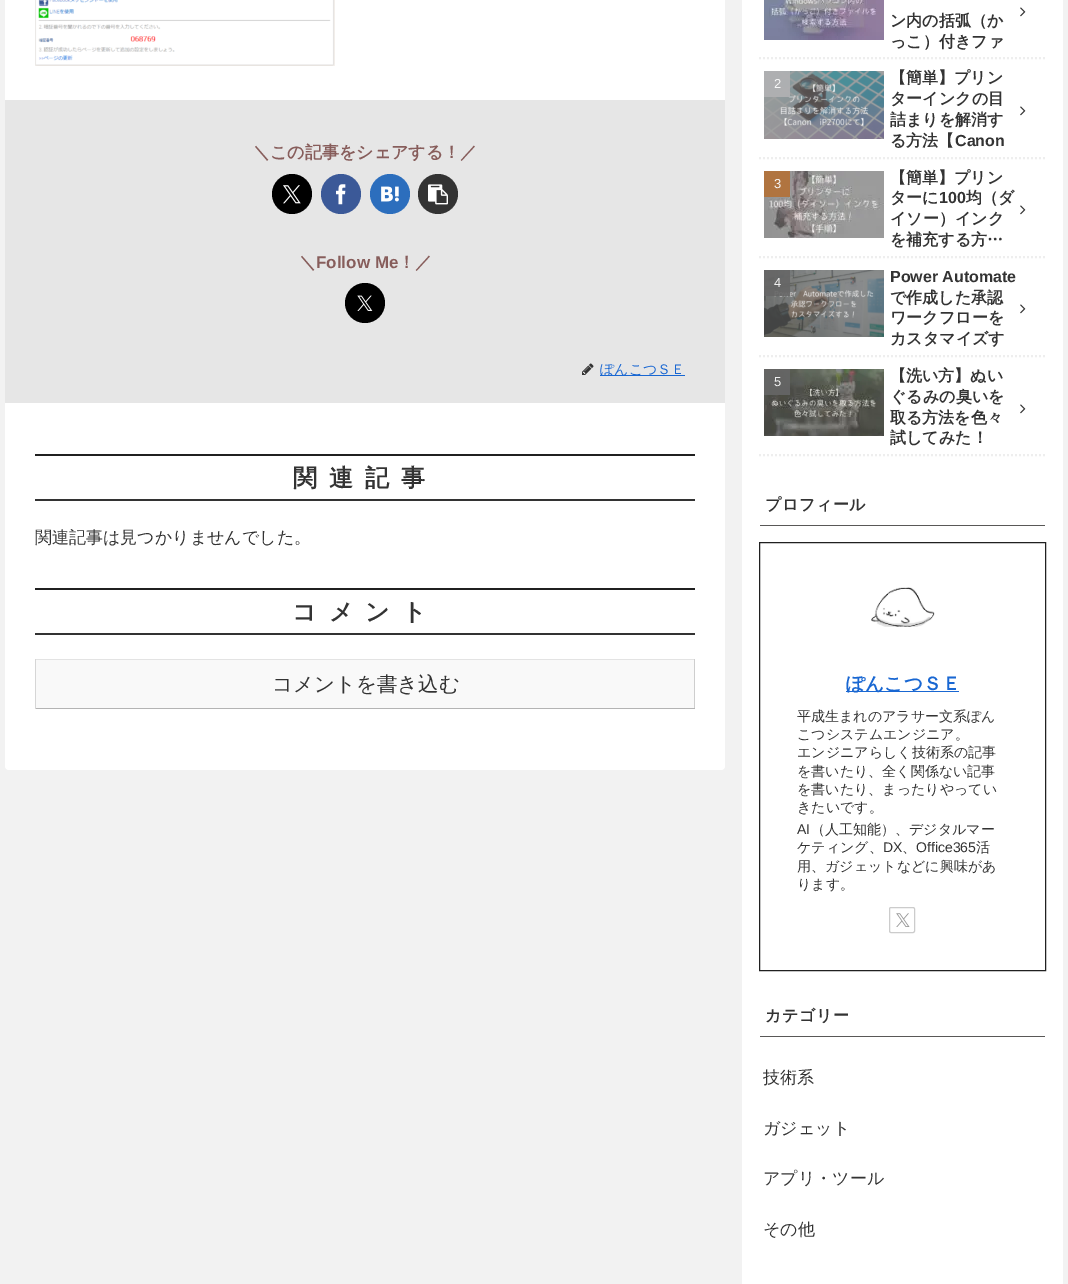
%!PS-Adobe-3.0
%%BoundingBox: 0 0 1068 1284
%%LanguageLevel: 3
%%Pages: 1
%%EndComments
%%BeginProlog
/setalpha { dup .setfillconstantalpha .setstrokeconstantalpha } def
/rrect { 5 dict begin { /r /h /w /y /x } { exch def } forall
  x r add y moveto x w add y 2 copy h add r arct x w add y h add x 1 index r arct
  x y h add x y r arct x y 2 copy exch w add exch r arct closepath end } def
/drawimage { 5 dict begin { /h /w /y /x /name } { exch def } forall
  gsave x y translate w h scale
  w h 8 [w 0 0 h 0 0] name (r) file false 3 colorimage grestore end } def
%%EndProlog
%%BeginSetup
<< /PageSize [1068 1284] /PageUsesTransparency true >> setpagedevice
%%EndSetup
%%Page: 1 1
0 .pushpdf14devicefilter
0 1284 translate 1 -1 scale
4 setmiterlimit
0.949 setgray
0 0 1068 1284 rectfill
1 setgray
5 -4 720 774 4 rrect fill
(images/1.raw) 35 0 300 66 drawimage
0.902 setgray
5 100 720 303 rectfill
0 setgray
newpath 292 194 20 0 360 arc closepath fill
(images/2.raw) 283 185 18 19 drawimage
0.231 0.349 0.596 setrgbcolor
newpath 341 194 20 0 360 arc closepath fill
(images/3.raw) 336 184 10 21 drawimage
0.173 0.431 0.741 setrgbcolor
newpath 390 194 20 0 360 arc closepath fill
(images/4.raw) 381 186 18 16 drawimage
0.2 setgray
newpath 438 194 20 0 360 arc closepath fill
(images/5.raw) 428 184 20 21 drawimage
0 setgray
newpath 365 303 20 0 360 arc closepath fill
(images/6.raw) 357 295 16 16 drawimage
(images/7.raw) 582 363 12 12 drawimage
0.098 0.404 0.824 setrgbcolor
600 375 85 1 rectfill
0.125 setgray
35 454 660 2 rectfill
0.2 setgray
35 499 660 2 rectfill
0.125 setgray
35 588 660 2 rectfill
0.2 setgray
35 633 660 2 rectfill
0.976 setgray
36 660 658 48 rectfill
0.89 setgray
35 659 660 1 rectfill
0.808 setgray
694 659 1 50 rectfill
0.706 setgray
35 708 660 1 rectfill
0.839 setgray
35 659 1 50 rectfill
1 setgray
742 0 321 1284 rectfill
0.933 setgray
2 setlinewidth
[2 2] 0 setdash
newpath 759 58 moveto 1046 58 lineto stroke
(images/8.raw) 764 0 120 40 drawimage
(images/9.raw) 1020 7 6 10 drawimage
newpath 759 158 moveto 1046 158 lineto stroke
(images/10.raw) 764 71 120 68 drawimage
0.9 setalpha
0.694 0.694 0.702 setrgbcolor
764 71 26 26 rectfill
1 setalpha
(images/9.raw) 1020 106 6 10 drawimage
0.933 setgray
newpath 759 257 moveto 1046 257 lineto stroke
(images/11.raw) 764 171 120 67 drawimage
0.9 setalpha
0.702 0.439 0.212 setrgbcolor
764 171 26 26 rectfill
1 setalpha
(images/9.raw) 1020 205 6 10 drawimage
0.933 setgray
newpath 759 356 moveto 1046 356 lineto stroke
(images/12.raw) 764 270 120 67 drawimage
0.9 setalpha
0.4 setgray
764 270 26 26 rectfill
1 setalpha
(images/9.raw) 1020 304 6 10 drawimage
0.933 setgray
newpath 759 455 moveto 1046 455 lineto stroke
(images/13.raw) 764 369 120 67 drawimage
0.9 setalpha
0.4 setgray
764 369 26 26 rectfill
1 setalpha
(images/9.raw) 1020 404 6 10 drawimage
0.349 0.345 0.341 setrgbcolor
760 525 285 1 rectfill
0.125 setgray
1 setlinewidth
[] 0 setdash
759.5 542.5 286 428 rectstroke
(images/14.raw) 871 587 64 40 drawimage
0.098 0.404 0.824 setrgbcolor
846 691 113 1 rectfill
0.8 setgray
889.5 907.5 25 25 1.5 rrect stroke
(images/15.raw) 896 913 14 14 drawimage
0.349 0.345 0.341 setrgbcolor
760 1036 285 1 rectfill
/WenQuanYiZenHei-Bold [17 0 0 -17 0 0] selectfont
0.529 0.365 0.357 setrgbcolor
253 158 moveto (＼この記事をシェアする！／) show
299 268 moveto (＼) show
/LiberationSans-Bold [17 0 0 -17 0 0] selectfont
316 268 moveto (Follow Me) show
/WenQuanYiZenHei-Bold [17 0 0 -17 0 0] selectfont
398 268 moveto (！／) show
/WenQuanYiZenHei-Medium [14 0 0 -14 0 0] selectfont
0.098 0.404 0.824 setrgbcolor
600 374 moveto (ぽんこつＳＥ) show
/WenQuanYiZenHei-Bold [24 0 0 -24 0 0] selectfont
0.2 setgray
293 486 moveto 12 0 (関連記事) ashow
/WenQuanYiZenHei-Medium [17 0 0 -17 0 0] selectfont
35 543 moveto (関連記事は見つかりませんでした。) show
/WenQuanYiZenHei-Bold [24 0 0 -24 0 0] selectfont
292 620 moveto 12 0 (コメント) ashow
/WenQuanYiZenHei-Medium [20.5 0 0 -20.5 0 0] selectfont
272 691 moveto (コメントを書き込む) show
/WenQuanYiZenHei-Bold [16 0 0 -16 0 0] selectfont
890 26 moveto (ン内の括弧（か) show
890 47 moveto (っこ）付きファ) show
/LiberationSans-Regular [13 0 0 -13 0 0] selectfont
0.969 setgray
774 88 moveto (2) show
/WenQuanYiZenHei-Bold [16 0 0 -16 0 0] selectfont
0.2 setgray
890 83 moveto (【簡単】プリン) show
890 104 moveto (ターインクの目) show
890 125 moveto (詰まりを解消す) show
890 146 moveto (る方法【) show
/LiberationSans-Bold [16 0 0 -16 0 0] selectfont
955 146 moveto (Canon) show
/LiberationSans-Regular [13 0 0 -13 0 0] selectfont
0.969 setgray
774 188 moveto (3) show
/WenQuanYiZenHei-Bold [16 0 0 -16 0 0] selectfont
0.2 setgray
890 183 moveto (【簡単】プリン) show
890 203 moveto (ターに) show
/LiberationSans-Bold [16 0 0 -16 0 0] selectfont
939 203 moveto (100) show
/WenQuanYiZenHei-Bold [16 0 0 -16 0 0] selectfont
966 203 moveto (均（ダ) show
890 224 moveto (イソー）インク) show
890 245 moveto (を補充する方…) show
/LiberationSans-Regular [13 0 0 -13 0 0] selectfont
0.941 setgray
774 287 moveto (4) show
/LiberationSans-Bold [16 0 0 -16 0 0] selectfont
0.2 setgray
890 282 moveto (Power Automate) show
/WenQuanYiZenHei-Bold [16 0 0 -16 0 0] selectfont
890 303 moveto (で作成した承認) show
890 323 moveto (ワークフローを) show
890 344 moveto (カスタマイズす) show
/LiberationSans-Regular [13 0 0 -13 0 0] selectfont
0.941 setgray
774 386 moveto (5) show
/WenQuanYiZenHei-Bold [16 0 0 -16 0 0] selectfont
0.2 setgray
890 381 moveto (【洗い方】ぬい) show
890 402 moveto (ぐるみの臭いを) show
890 423 moveto (取る方法を色々) show
890 443 moveto (試してみた！) show
765 510 moveto 0.5 0 (プロフィール) ashow
/WenQuanYiZenHei-Bold [18.75 0 0 -18.75 0 0] selectfont
0.098 0.404 0.824 setrgbcolor
846 690 moveto (ぽんこつＳＥ) show
/WenQuanYiZenHei-Medium [14 0 0 -14 0 0] selectfont
0.2 setgray
797 721 moveto (平成生まれのアラサー文系ぽん) show
797 739 moveto (こつシステムエンジニア。) show
797 757 moveto (エンジニアらしく技術系の記事) show
797 776 moveto (を書いたり、全く関係ない記事) show
797 794 moveto (を書いたり、まったりやってい) show
797 812 moveto (きたいです。) show
/LiberationSans-Regular [14 0 0 -14 0 0] selectfont
797 834 moveto (AI) show
/WenQuanYiZenHei-Medium [14 0 0 -14 0 0] selectfont
811 834 moveto (（人工知能）、デジタルマー) show
797 852 moveto (ケティング、) show
/LiberationSans-Regular [14 0 0 -14 0 0] selectfont
883 852 moveto (DX) show
/WenQuanYiZenHei-Medium [14 0 0 -14 0 0] selectfont
902 852 moveto (、) show
/LiberationSans-Regular [14 0 0 -14 0 0] selectfont
916 852 moveto (Office365) show
/WenQuanYiZenHei-Medium [14 0 0 -14 0 0] selectfont
976 852 moveto (活) show
797 871 moveto (用、ガジェットなどに興味があ) show
797 889 moveto (ります。) show
/WenQuanYiZenHei-Bold [16 0 0 -16 0 0] selectfont
765 1021 moveto 0.5 0 (カテゴリー) ashow
/WenQuanYiZenHei-Medium [17 0 0 -17 0 0] selectfont
763 1083 moveto (技術系) show
763 1134 moveto (ガジェット) show
763 1184 moveto (アプリ・ツール) show
763 1235 moveto (その他) show
.poppdf14devicefilter showpage
%%EOF
